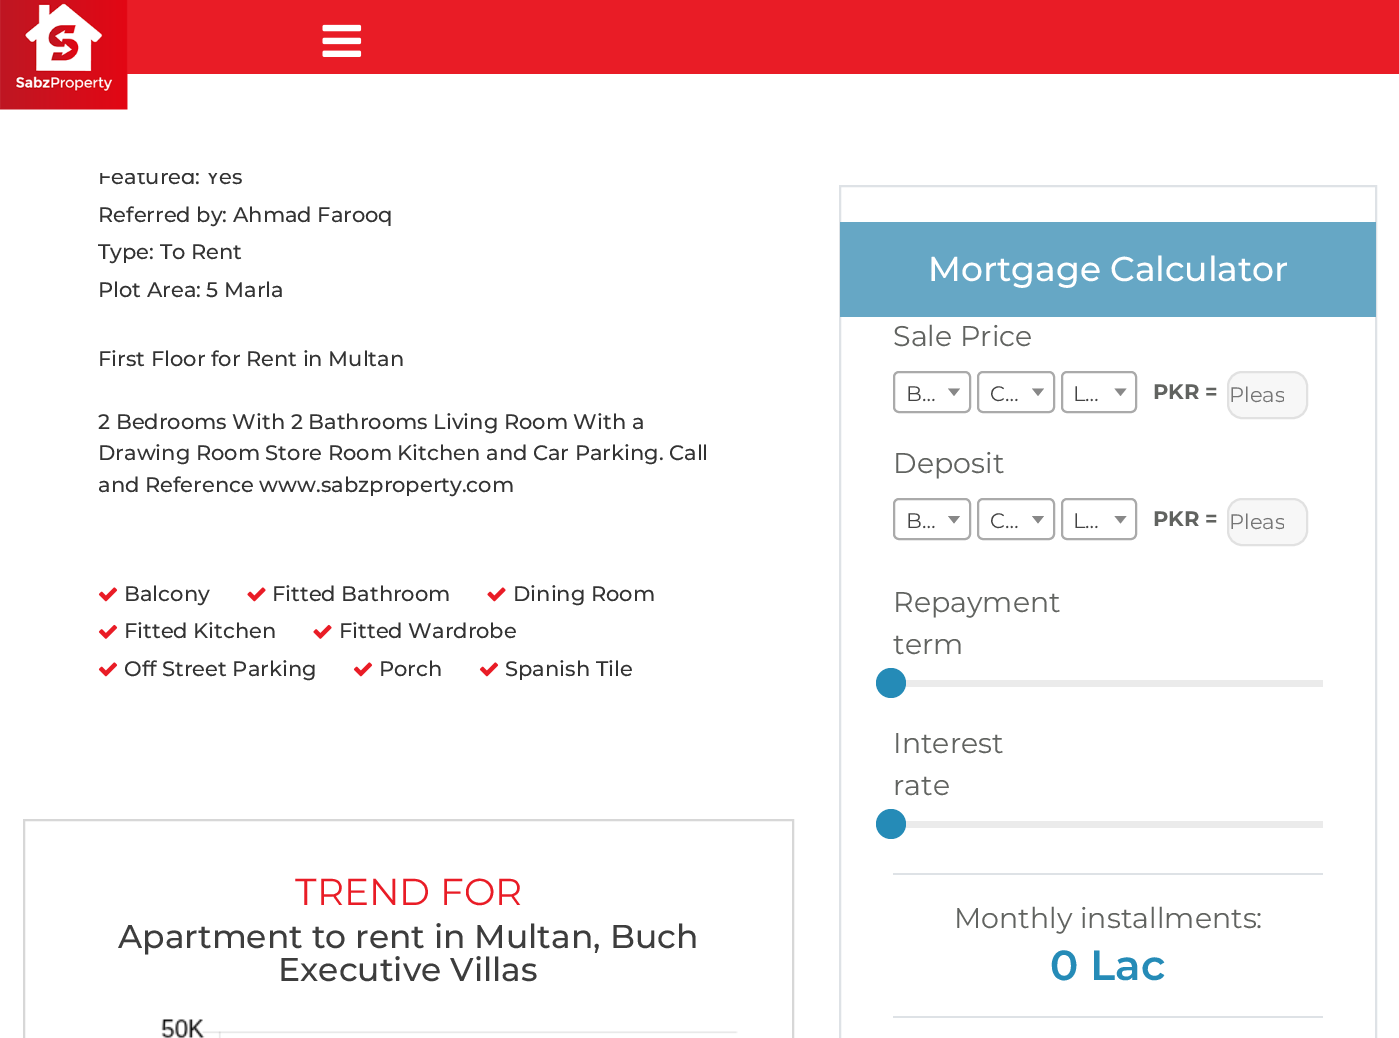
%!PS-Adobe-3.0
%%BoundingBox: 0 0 1399 1038
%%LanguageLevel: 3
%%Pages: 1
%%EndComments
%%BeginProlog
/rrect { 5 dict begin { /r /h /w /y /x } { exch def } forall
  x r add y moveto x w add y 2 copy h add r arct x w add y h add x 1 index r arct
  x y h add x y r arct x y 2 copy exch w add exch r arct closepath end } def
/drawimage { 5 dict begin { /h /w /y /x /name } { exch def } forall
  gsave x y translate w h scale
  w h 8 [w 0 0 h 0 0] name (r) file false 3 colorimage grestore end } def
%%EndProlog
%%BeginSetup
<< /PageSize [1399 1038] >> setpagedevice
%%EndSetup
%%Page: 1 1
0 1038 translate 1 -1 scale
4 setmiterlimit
1 setgray
0 0 1399 1038 rectfill
0.914 0.11 0.149 setrgbcolor
127 0 1272 74 rectfill
(images/1.raw) 0 0 128 110 drawimage
(images/2.raw) 322 24 40 33 drawimage
(images/3.raw) 98 587 20 15 drawimage
(images/4.raw) 247 587 19 15 drawimage
(images/4.raw) 487 587 19 15 drawimage
(images/5.raw) 98 624 20 15 drawimage
(images/6.raw) 313 624 19 15 drawimage
(images/3.raw) 98 662 20 15 drawimage
(images/3.raw) 353 662 20 15 drawimage
(images/3.raw) 479 662 20 15 drawimage
0.843 setgray
2 setlinewidth
24 820 769 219 rectstroke
(images/7.raw) 161 1019 577 19 drawimage
0.871 0.886 0.902 setrgbcolor
840 186 536 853 rectstroke
0.4 0.655 0.773 setrgbcolor
840 222 536 95 rectfill
0.667 setgray
894 372 76 40 5 rrect stroke
0.533 setgray
newpath 948 388.5 moveto 960 388.5 lineto 954 396 lineto closepath fill
0.667 setgray
978 372 76 40 5 rrect stroke
0.533 setgray
newpath 1032 388.5 moveto 1044 388.5 lineto 1038 396 lineto closepath fill
0.667 setgray
1062 372 74 40 5 rrect stroke
0.533 setgray
newpath 1114.5 388.5 moveto 1126.5 388.5 lineto 1120.5 396 lineto closepath fill
0.969 setgray
1228 372 79 46 14 rrect gsave fill grestore
0.882 setgray
stroke
0.667 setgray
894 499 76 40 5 rrect stroke
0.533 setgray
newpath 948 516 moveto 960 516 lineto 954 523.5 lineto closepath fill
0.667 setgray
978 499 76 40 5 rrect stroke
0.533 setgray
newpath 1032 516 moveto 1044 516 lineto 1038 523.5 lineto closepath fill
0.667 setgray
1062 499 74 40 5 rrect stroke
0.533 setgray
newpath 1114.5 516 moveto 1126.5 516 lineto 1120.5 523.5 lineto closepath fill
0.969 setgray
1228 499 79 46 14 rrect gsave fill grestore
0.882 setgray
stroke
0.922 setgray
905 680 418 7 rectfill
0.145 0.545 0.718 setrgbcolor
newpath 891 683 15 0 360 arc closepath fill
0.922 setgray
905 821 418 7 rectfill
0.145 0.545 0.718 setrgbcolor
newpath 891 824 15 0 360 arc closepath fill
0.871 0.886 0.902 setrgbcolor
893 873 430 2 rectfill
893 1016 430 2 rectfill
/Montserrat-Medium [21 0 0 -21 0 0] selectfont
0.2 setgray
98 184 moveto (Featured: Yes) show
1 setgray
99 168 140 5 rectfill
0.2 setgray
98 222 moveto (Referred by: Ahmad Farooq) show
98 259 moveto (Type: To Rent) show
98 297 moveto (Plot Area: 5 Marla) show
98 366 moveto (First Floor for Rent in Multan) show
98 429 moveto (2 Bedrooms With 2 Bathrooms Living Room With a) show
98 460 moveto (Drawing Room Store Room Kitchen and Car Parking. Call) show
98 492 moveto (and Reference www.sabzproperty.com) show
124 601 moveto (Balcony) show
272 601 moveto (Fitted Bathroom) show
513 601 moveto (Dining Room) show
124 638 moveto (Fitted Kitchen) show
339 638 moveto (Fitted Wardrobe) show
124 676 moveto (Off Street Parking) show
379 676 moveto (Porch) show
505 676 moveto (Spanish Tile) show
/Montserrat-Regular [37.5 0 0 -37.5 0 0] selectfont
0.914 0.11 0.149 setrgbcolor
295 905 moveto (TREND FOR) show
/Montserrat-Medium [33 0 0 -33 0 0] selectfont
0.239 setgray
118 948 moveto (Apartment to rent in Multan, Buch) show
278 981 moveto (Executive Villas) show
/Montserrat-Medium [34.5 0 0 -34.5 0 0] selectfont
1 setgray
928 281 moveto (Mortgage Calculator) show
/Montserrat-Regular [28.5 0 0 -28.5 0 0] selectfont
0.38 0.388 0.376 setrgbcolor
893 346 moveto (Sale Price) show
/Montserrat-Regular [21 0 0 -21 0 0] selectfont
0.267 setgray
906 401 moveto (B…) show
990 401 moveto (C…) show
1073 401 moveto (L…) show
/Montserrat-Bold [21 0 0 -21 0 0] selectfont
0.38 0.388 0.376 setrgbcolor
1153 399 moveto (PKR =) show
gsave
1229 381 55 27 rectclip
/Montserrat-Regular [21 0 0 -21 0 0] selectfont
0.459 setgray
1229 402 moveto (Pleas) show
grestore
/Montserrat-Regular [28.5 0 0 -28.5 0 0] selectfont
893 473 moveto (Deposit) show
/Montserrat-Regular [21 0 0 -21 0 0] selectfont
0.267 setgray
906 528 moveto (B…) show
990 528 moveto (C…) show
1073 528 moveto (L…) show
/Montserrat-Bold [21 0 0 -21 0 0] selectfont
0.38 0.388 0.376 setrgbcolor
1153 526 moveto (PKR =) show
gsave
1229 509 55 27 rectclip
/Montserrat-Regular [21 0 0 -21 0 0] selectfont
0.459 setgray
1229 529 moveto (Pleas) show
grestore
/Montserrat-Regular [28.5 0 0 -28.5 0 0] selectfont
893 612 moveto (Repayment) show
893 654 moveto (term) show
893 753 moveto (Interest) show
893 795 moveto (rate) show
954 928 moveto (Monthly installments:) show
/Montserrat-SemiBold [42 0 0 -42 0 0] selectfont
0.145 0.545 0.718 setrgbcolor
1050 980 moveto (0 Lac) show
showpage
%%EOF
